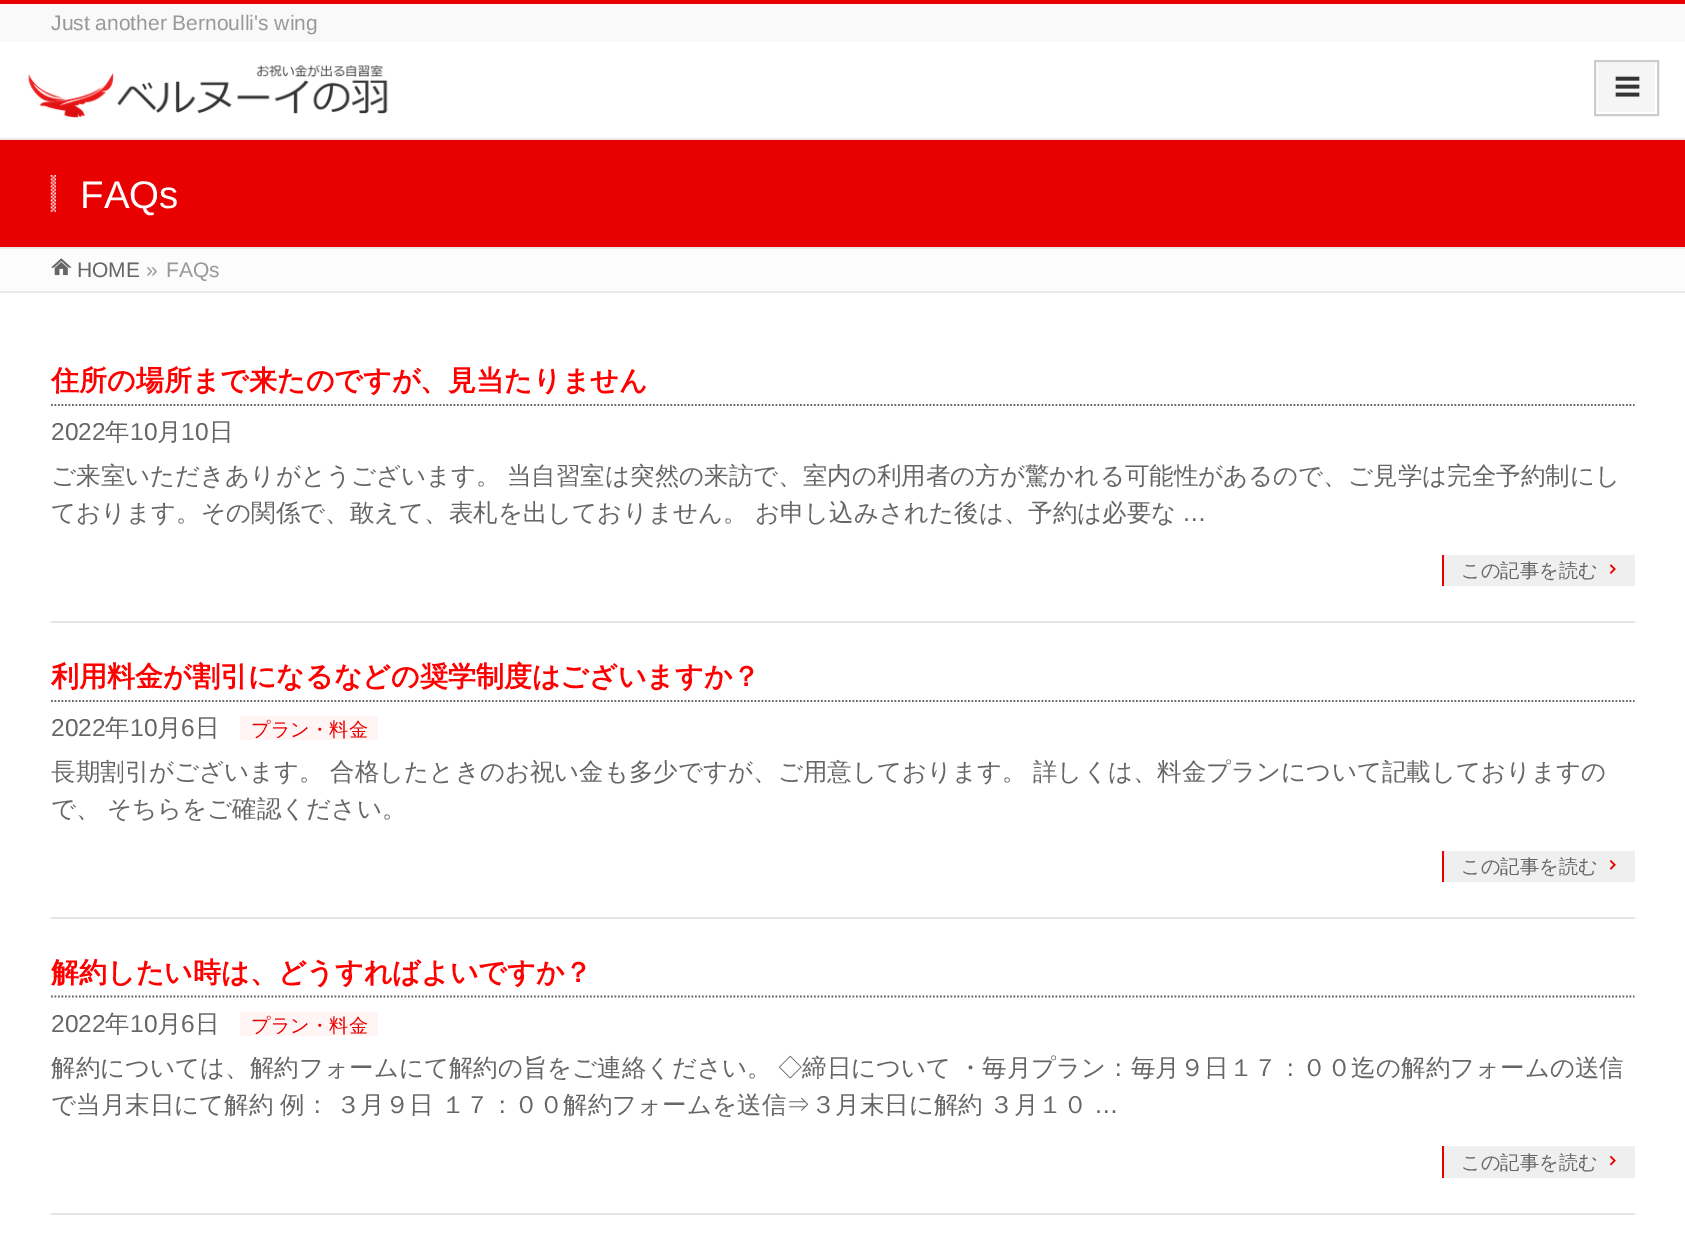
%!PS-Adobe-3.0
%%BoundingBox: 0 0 1685 1258
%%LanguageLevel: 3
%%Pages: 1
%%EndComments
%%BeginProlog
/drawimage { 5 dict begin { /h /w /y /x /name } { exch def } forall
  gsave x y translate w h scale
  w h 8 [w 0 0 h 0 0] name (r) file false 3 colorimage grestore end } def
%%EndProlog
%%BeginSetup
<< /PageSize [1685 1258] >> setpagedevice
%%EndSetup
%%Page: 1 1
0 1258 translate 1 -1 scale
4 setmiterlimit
1 setgray
0 0 1685 1258 rectfill
0.976 setgray
0 4 1685 38 rectfill
0.914 0 0 setrgbcolor
0 0 1685 4 rectfill
(images/1.raw) 28 64 360 54 drawimage
0.961 setgray
1598 63 57 49 rectfill
0.8 setgray
2 setlinewidth
1595 61 63 54 rectstroke
(images/2.raw) 1615 76 25 21 drawimage
0.914 0 0 setrgbcolor
0 140 1685 107 rectfill
0.914 setgray
0 138 1685 2 rectfill
0 247 1685 2 rectfill
(images/3.raw) 50 175 6 37 drawimage
0.988 setgray
0 249 1685 42 rectfill
(images/4.raw) 51 258 21 18 drawimage
0.914 setgray
0 291 1685 2 rectfill
0.898 setgray
51 621 1584 2 rectfill
0.4 setgray
1.8 setlinewidth
[1.75 1.75] 0 setdash
newpath 51 405 moveto 1634.5 405 lineto stroke
0.937 setgray
1444 555 191 31 rectfill
0.914 0 0 setrgbcolor
1442 555 2 31 rectfill
(images/5.raw) 1609 564 7 10 drawimage
0.898 setgray
51 917 1584 2 rectfill
0.4 setgray
newpath 51 701 moveto 1634.5 701 lineto stroke
1 0.961 0.961 setrgbcolor
240 716 138 24 rectfill
0.937 setgray
1444 851 191 31 rectfill
0.914 0 0 setrgbcolor
1442 851 2 31 rectfill
(images/6.raw) 1609 860 7 10 drawimage
0.898 setgray
51 1213 1584 2 rectfill
0.4 setgray
newpath 51 996.5 moveto 1634.5 996.5 lineto stroke
1 0.961 0.961 setrgbcolor
240 1012 138 24 rectfill
0.937 setgray
1444 1146 191 32 rectfill
0.914 0 0 setrgbcolor
1442 1146 2 32 rectfill
(images/7.raw) 1609 1155 7 11 drawimage
/LiberationSans-Regular [21 0 0 -21 0 0] selectfont
0.6 setgray
51 30 moveto (Just another Bernoulli's wing) show
/LiberationSans-Regular [38.5 0 0 -38.5 0 0] selectfont
1 setgray
80 208 moveto (FAQs) show
/LiberationSans-Regular [21 0 0 -21 0 0] selectfont
0.4 setgray
77 277 moveto (HOME) show
0.6 setgray
146 277 moveto (») show
166 277 moveto (FAQs) show
/WenQuanYiZenHei-Bold [28 0 0 -28 0 0] selectfont
1 0 0 setrgbcolor
51 390 moveto (住所の場所まで来たのですが、見当たりません) show
/LiberationSans-Regular [24.5 0 0 -24.5 0 0] selectfont
0.4 setgray
51 440 moveto (2022) show
/WenQuanYiZenHei-Medium [24.5 0 0 -24.5 0 0] selectfont
105 440 moveto (年) show
/LiberationSans-Regular [24.5 0 0 -24.5 0 0] selectfont
130 440 moveto (10) show
/WenQuanYiZenHei-Medium [24.5 0 0 -24.5 0 0] selectfont
157 440 moveto (月) show
/LiberationSans-Regular [24.5 0 0 -24.5 0 0] selectfont
181 440 moveto (10) show
/WenQuanYiZenHei-Medium [24.5 0 0 -24.5 0 0] selectfont
209 440 moveto (日) show
51 484 moveto -1 0 32 (ご来室いただきありがとうございます。 当自習室は突然の来訪で、室内の利用者の方が驚かれる可能性があるので、ご見学は完全予約制にし) widthshow
51 521 moveto (ております。その関係で、敢えて、表札を出しておりません。 お申し込みされた後は、予約は必要な) show
/LiberationSans-Regular [24.5 0 0 -24.5 0 0] selectfont
1182 521 moveto (…) show
/WenQuanYiZenHei-Medium [19.25 0 0 -19.25 0 0] selectfont
1461 577 moveto (この記事を読む) show
/WenQuanYiZenHei-Bold [28 0 0 -28 0 0] selectfont
1 0 0 setrgbcolor
51 686 moveto (利用料金が割引になるなどの奨学制度はございますか？) show
/LiberationSans-Regular [24.5 0 0 -24.5 0 0] selectfont
0.4 setgray
51 736 moveto (2022) show
/WenQuanYiZenHei-Medium [24.5 0 0 -24.5 0 0] selectfont
105 736 moveto (年) show
/LiberationSans-Regular [24.5 0 0 -24.5 0 0] selectfont
130 736 moveto (10) show
/WenQuanYiZenHei-Medium [24.5 0 0 -24.5 0 0] selectfont
157 736 moveto (月) show
/LiberationSans-Regular [24.5 0 0 -24.5 0 0] selectfont
181 736 moveto (6) show
/WenQuanYiZenHei-Medium [24.5 0 0 -24.5 0 0] selectfont
195 736 moveto (日) show
/WenQuanYiZenHei-Medium [19.25 0 0 -19.25 0 0] selectfont
0.914 0 0 setrgbcolor
251 736 moveto (プラン・料金) show
/WenQuanYiZenHei-Medium [24.5 0 0 -24.5 0 0] selectfont
0.4 setgray
51 780 moveto -1 0 32 (長期割引がございます。 合格したときのお祝い金も多少ですが、ご用意しております。 詳しくは、料金プランについて記載しておりますの) widthshow
51 817 moveto -1 0 32 (で、 そちらをご確認ください。) widthshow
/WenQuanYiZenHei-Medium [19.25 0 0 -19.25 0 0] selectfont
1461 873 moveto (この記事を読む) show
/WenQuanYiZenHei-Bold [28 0 0 -28 0 0] selectfont
1 0 0 setrgbcolor
51 982 moveto (解約したい時は、どうすればよいですか？) show
/LiberationSans-Regular [24.5 0 0 -24.5 0 0] selectfont
0.4 setgray
51 1032 moveto (2022) show
/WenQuanYiZenHei-Medium [24.5 0 0 -24.5 0 0] selectfont
105 1032 moveto (年) show
/LiberationSans-Regular [24.5 0 0 -24.5 0 0] selectfont
130 1032 moveto (10) show
/WenQuanYiZenHei-Medium [24.5 0 0 -24.5 0 0] selectfont
157 1032 moveto (月) show
/LiberationSans-Regular [24.5 0 0 -24.5 0 0] selectfont
181 1032 moveto (6) show
/WenQuanYiZenHei-Medium [24.5 0 0 -24.5 0 0] selectfont
195 1032 moveto (日) show
/WenQuanYiZenHei-Medium [19.25 0 0 -19.25 0 0] selectfont
0.914 0 0 setrgbcolor
251 1032 moveto (プラン・料金) show
/WenQuanYiZenHei-Medium [24.5 0 0 -24.5 0 0] selectfont
0.4 setgray
51 1076 moveto -1 0 32 (解約については、解約フォームにて解約の旨をご連絡ください。 ◇締日について ・毎月プラン：毎月９日１７：００迄の解約フォームの送信) widthshow
51 1113 moveto -0.5 0 32 (で当月末日にて解約 例： ３月９日 １７：００解約フォームを送信⇒３月末日に解約 ３月１０) widthshow
/LiberationSans-Regular [24.5 0 0 -24.5 0 0] selectfont
1094 1113 moveto (…) show
/WenQuanYiZenHei-Medium [19.25 0 0 -19.25 0 0] selectfont
1461 1169 moveto (この記事を読む) show
showpage
%%EOF
